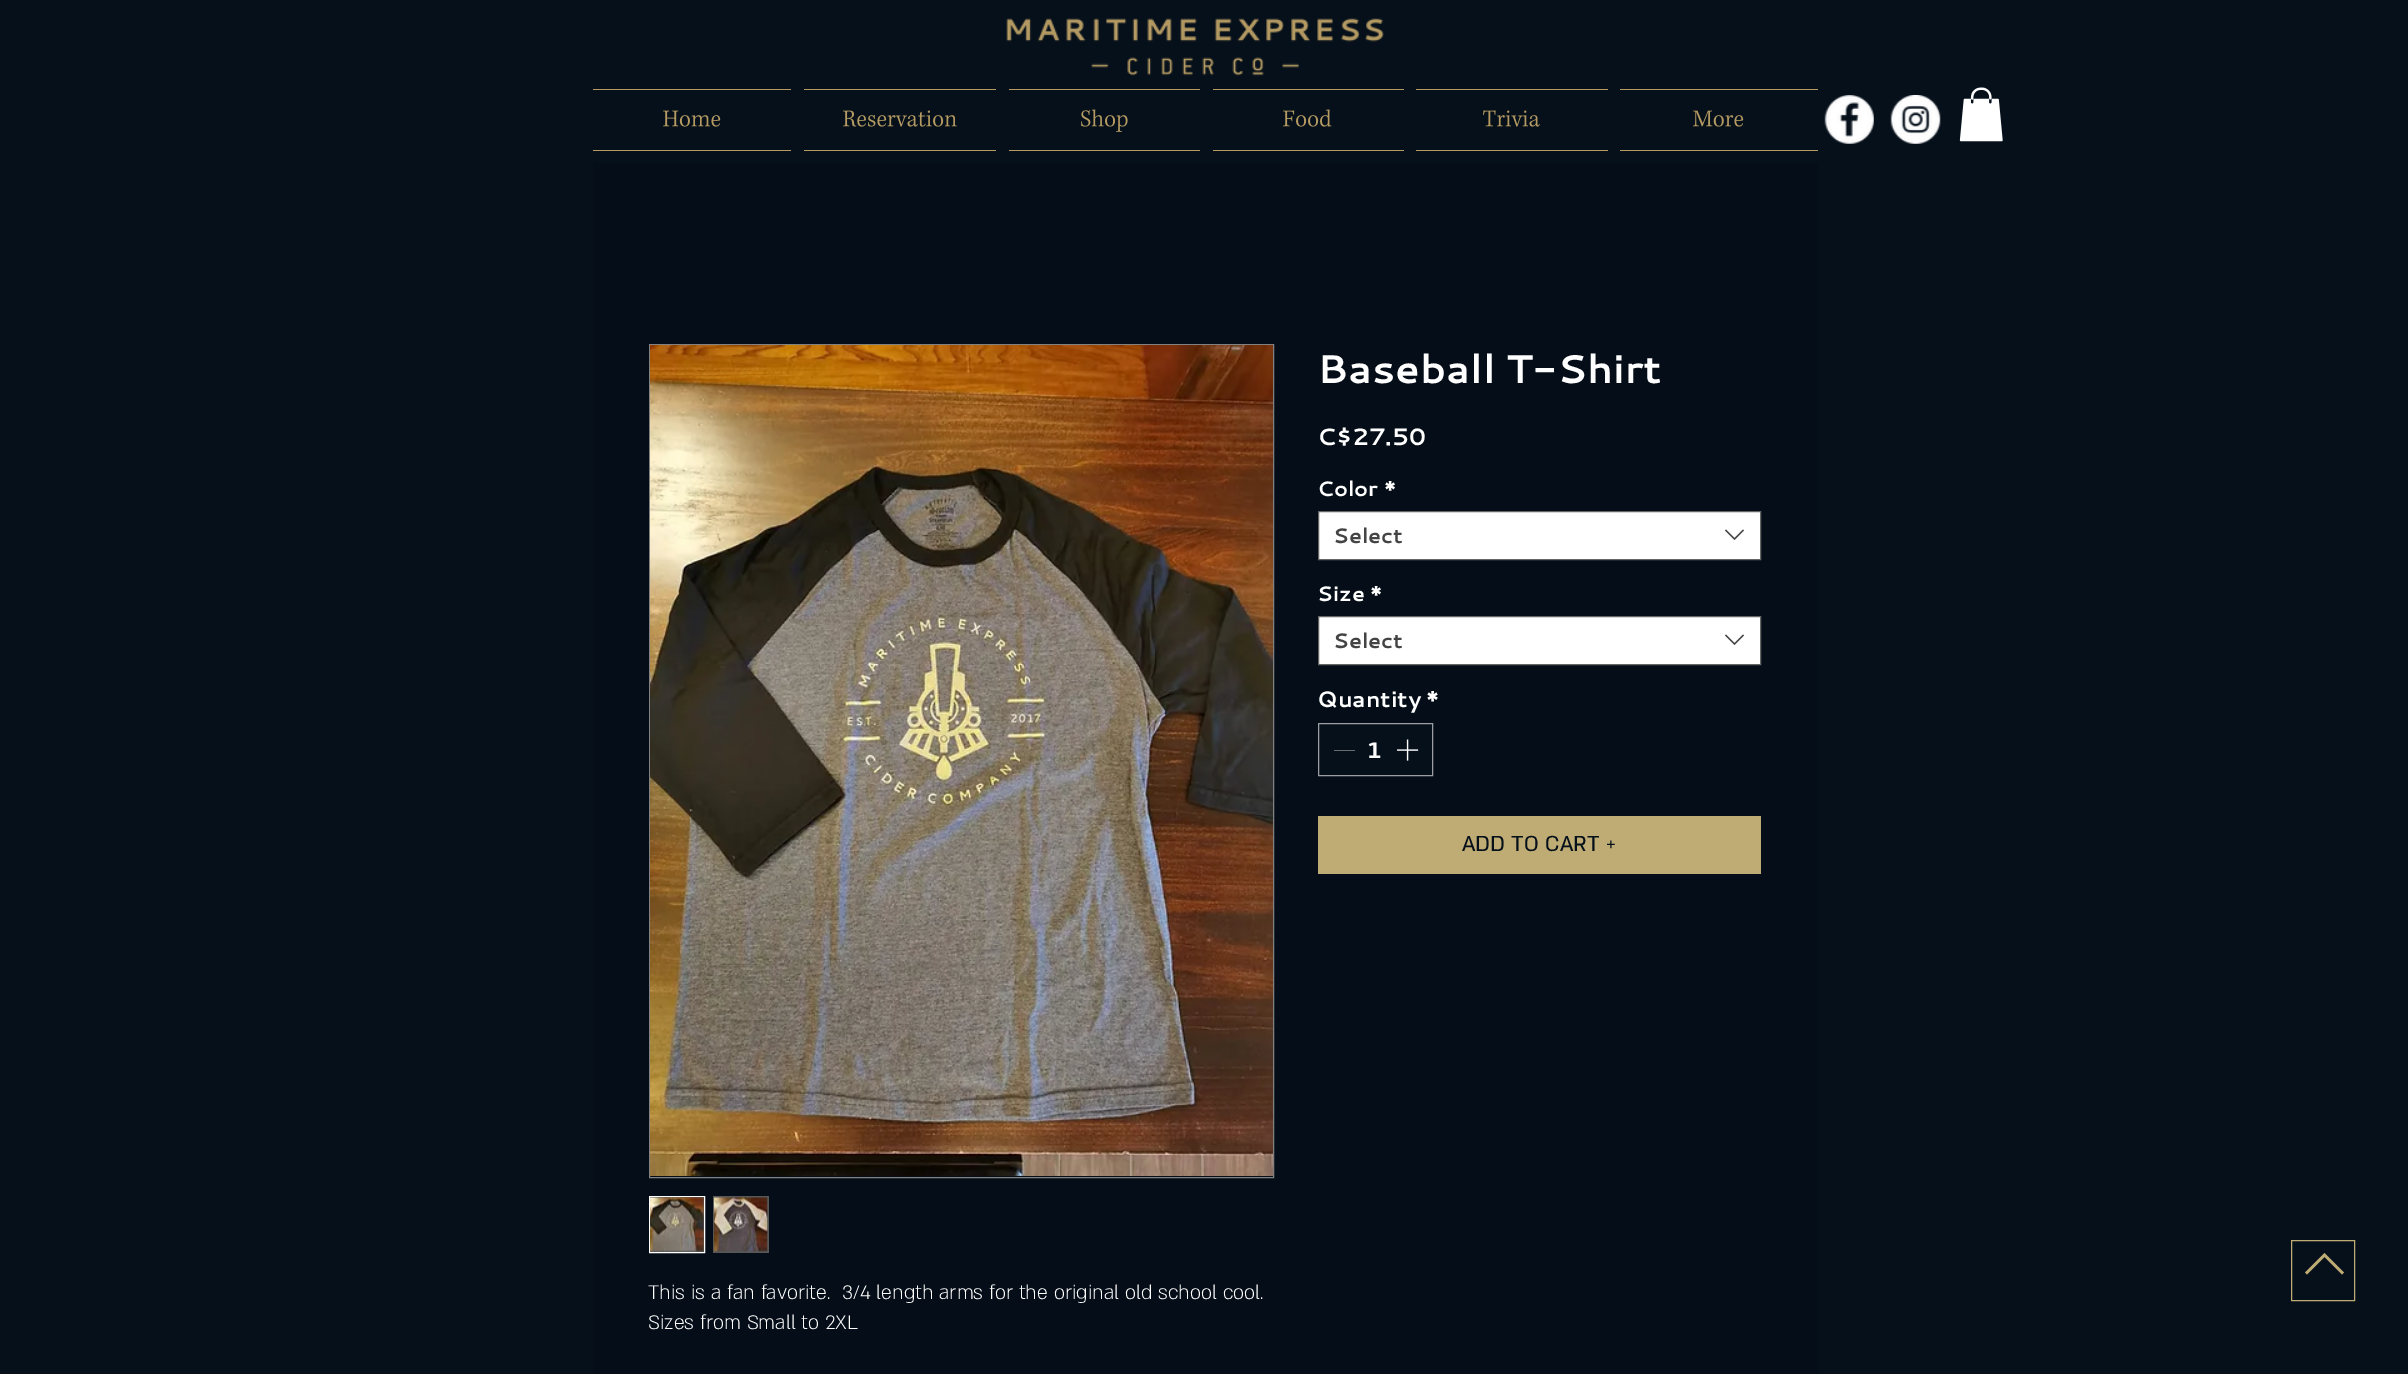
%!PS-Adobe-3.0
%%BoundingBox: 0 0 2408 1374
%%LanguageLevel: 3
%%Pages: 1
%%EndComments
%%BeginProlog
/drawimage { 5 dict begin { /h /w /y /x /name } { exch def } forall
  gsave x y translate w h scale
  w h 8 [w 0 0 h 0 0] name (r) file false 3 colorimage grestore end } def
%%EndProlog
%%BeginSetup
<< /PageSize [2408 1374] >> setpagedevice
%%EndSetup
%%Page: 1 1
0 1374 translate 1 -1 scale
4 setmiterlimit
0.024 0.063 0.106 setrgbcolor
0 0 2408 1374 rectfill
(images/1.raw) 1006 18 378 58 drawimage
0.71 0.608 0.384 setrgbcolor
593 89 198 1 rectfill
593 150 198 1 rectfill
(images/2.raw) 663 110 58 17 drawimage
804 89 192 1 rectfill
804 150 192 1 rectfill
(images/3.raw) 843 110 114 17 drawimage
1009 89 191 1 rectfill
1009 150 191 1 rectfill
(images/4.raw) 1081 109 47 23 drawimage
1213 89 191 1 rectfill
1213 150 191 1 rectfill
(images/5.raw) 1283 109 49 18 drawimage
1416 89 192 1 rectfill
1416 150 192 1 rectfill
(images/6.raw) 1483 110 57 17 drawimage
1620 89 198 1 rectfill
1620 150 198 1 rectfill
(images/7.raw) 1693 110 51 17 drawimage
(images/8.raw) 1824 95 50 49 drawimage
(images/9.raw) 1890 95 51 49 drawimage
(images/10.raw) 1959 87 44 55 drawimage
0.02 0.055 0.094 setrgbcolor
593 163 1225 1211 rectfill
1 setgray
newpath 1318.5 511.5 moveto 1760.5 511.5 lineto 1760.5 559.5 lineto 1318.5 559.5 lineto closepath gsave fill grestore
0.4 setgray
stroke
0.267 setgray
newpath 1743 529.5 moveto 1744 530.5 lineto 1734.5 540 lineto 1725 530.5 lineto 1726 529.5 lineto 1734.5 538 lineto closepath eofill
1 setgray
newpath 1318.5 616.5 moveto 1760.5 616.5 lineto 1760.5 664.5 lineto 1318.5 664.5 lineto closepath gsave fill grestore
0.4 setgray
stroke
0.267 setgray
newpath 1743 634.5 moveto 1744 635.5 lineto 1734.5 645 lineto 1725 635.5 lineto 1726 634.5 lineto 1734.5 643 lineto closepath eofill
0.024 0.063 0.106 setrgbcolor
newpath 1318.5 723.5 moveto 1432.5 723.5 lineto 1432.5 775.5 lineto 1318.5 775.5 lineto closepath gsave fill grestore
0.608 0.624 0.643 setrgbcolor
stroke
0.404 0.424 0.443 setrgbcolor
1334 750 21 1 rectfill
(images/11.raw) 1397 739 22 22 drawimage
0.745 0.675 0.455 setrgbcolor
1318 816 443 58 rectfill
0.506 setgray
649.5 344.5 624 833 rectstroke
(images/12.raw) 650 345 623 831 drawimage
0.341 setgray
newpath 649.5 1196.5 moveto 704.5 1196.5 lineto 704.5 1252.5 lineto 649.5 1252.5 lineto closepath gsave fill grestore
1 setgray
stroke
(images/13.raw) 650 1197 54 55 drawimage
0.341 setgray
713 1196 56 57 rectfill
(images/14.raw) 713 1197 55 55 drawimage
0.745 0.675 0.455 setrgbcolor
2291.5 1240.5 63 60 rectstroke
newpath 2305 1272.5 moveto 2307 1274.5 lineto 2324.5 1257 lineto 2342 1274.5 lineto 2344 1272.5 lineto 2324.5 1253 lineto closepath fill
/Cantarell-Bold [40 0 0 -40 0 0] selectfont
1 setgray
1317 383 moveto (Baseball T-Shirt) show
/Cantarell-Bold [23.75 0 0 -23.75 0 0] selectfont
1317 445 moveto (C$27.50) show
/Cantarell-Bold [21 0 0 -21 0 0] selectfont
1317 496 moveto (Color) show
1384 496 moveto (*) show
0.267 setgray
1333 543 moveto (Select) show
1 setgray
1317 601 moveto (Size) show
1370 601 moveto (*) show
0.267 setgray
1333 648 moveto (Select) show
/Cantarell-Bold [22.5 0 0 -22.5 0 0] selectfont
1 setgray
1317 707 moveto (Quantity) show
1426 707 moveto (*) show
1366 758 moveto (1) show
/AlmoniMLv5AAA-Regular [25 0 0 -25 0 0] selectfont
0.024 0.063 0.106 setrgbcolor
1462 851 moveto (ADD TO CART +) show
/AlmoniMLv5AAA-Light [22.5 0 0 -22.5 0 0] selectfont
1 setgray
648 1299 moveto (This is a fan favorite.  3/4 length arms for the original old school cool.) show
648 1329 moveto (Sizes from Small to 2XL) show
showpage
%%EOF
